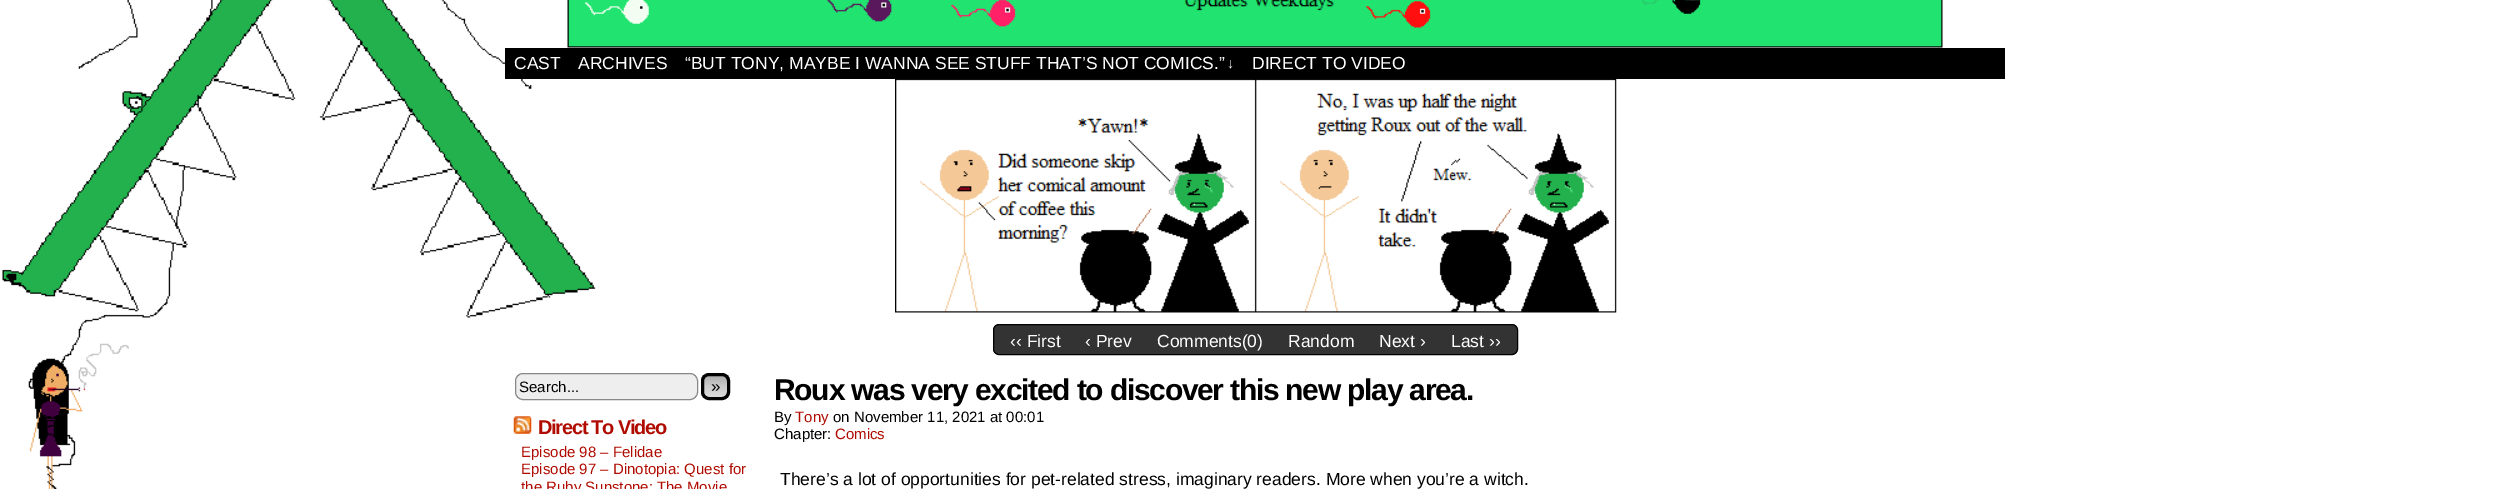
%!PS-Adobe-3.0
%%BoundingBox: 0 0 2509 489
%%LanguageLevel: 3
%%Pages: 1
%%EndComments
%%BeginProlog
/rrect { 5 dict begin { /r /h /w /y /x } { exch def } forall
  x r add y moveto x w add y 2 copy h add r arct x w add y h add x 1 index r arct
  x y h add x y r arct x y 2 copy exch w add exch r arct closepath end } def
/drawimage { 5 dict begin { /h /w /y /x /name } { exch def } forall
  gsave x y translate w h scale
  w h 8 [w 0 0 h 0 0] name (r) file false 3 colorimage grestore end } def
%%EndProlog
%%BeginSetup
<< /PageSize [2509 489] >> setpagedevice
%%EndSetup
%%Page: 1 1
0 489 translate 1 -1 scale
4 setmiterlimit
1 setgray
0 0 2509 489 rectfill
(images/1.raw) 2 0 594 489 drawimage
(images/2.raw) 567 0 1376 48 drawimage
0 setgray
505 48 1500 31 rectfill
(images/3.raw) 895 79 722 234 drawimage
0.2 setgray
993.5 324.5 524 30 5.5 rrect gsave fill grestore
0 setgray
stroke
0.933 setgray
515.5 373.5 182 26 7.5 rrect gsave fill grestore
0.533 setgray
stroke
gsave
701 373 29 27 8 rrect clip newpath
gsave newpath 701 375 moveto 730 375 lineto 730 398 lineto 701 398 lineto closepath clip newpath
<< /ShadingType 2 /ColorSpace /DeviceRGB /Coords [716 375 716 398] /Extend [true true] /Function << /FunctionType 3 /Domain [0 1] /Functions [<< /FunctionType 2 /Domain [0 1] /C0 [0.667 0.667 0.667] /C1 [0.8 0.8 0.8] /N 1 >> << /FunctionType 2 /Domain [0 1] /C0 [0.8 0.8 0.8] /C1 [0.867 0.867 0.867] /N 1 >>] /Bounds [0.5] /Encode [0 1 0 1] >> >> shfill grestore
grestore
0 setgray
3 setlinewidth
702.5 374.5 26 24 6.5 rrect stroke
(images/4.raw) 513 416 19 18 drawimage
/LiberationSans-Regular [17.5 0 0 -17.5 0 0] selectfont
1 setgray
514 69 moveto (CAST) show
578 69 moveto (ARCHIVES) show
685 69 moveto (“BUT TONY, MAYBE I WANNA SEE STUFF THAT’S NOT COMICS.”) show
/LiberationSans-Regular [14 0 0 -14 0 0] selectfont
1227 68 moveto (↓) show
/LiberationSans-Regular [17.5 0 0 -17.5 0 0] selectfont
1252 69 moveto (DIRECT TO VIDEO) show
1010 347 moveto (‹‹ First) show
1085 347 moveto (‹ Prev) show
1157 347 moveto (Comments\(0\)) show
1288 347 moveto (Random) show
1379 347 moveto (Next ›) show
1451 347 moveto (Last ››) show
/LiberationSans-Regular [15 0 0 -15 0 0] selectfont
0 setgray
519 392 moveto (Search...) show
/LiberationSans-Regular [17 0 0 -17 0 0] selectfont
711 392 moveto (») show
/LiberationSans-Bold [20 0 0 -20 0 0] selectfont
0.69 0.043 0 setrgbcolor
538 434 moveto -1.25 0 (Direct To Video) ashow
/LiberationSans-Regular [15 0 0 -15 0 0] selectfont
521 457 moveto (Episode 98 – Felidae) show
521 474 moveto (Episode 97 – Dinotopia: Quest for) show
521 492 moveto (the Ruby Sunstone: The Movie) show
/LiberationSans-Bold [30 0 0 -30 0 0] selectfont
0 setgray
774 400 moveto -1.25 0 (Roux was very excited to discover this new play area.) ashow
/LiberationSans-Regular [15 0 0 -15 0 0] selectfont
774 422 moveto (By) show
0.69 0.043 0 setrgbcolor
795 422 moveto (Tony) show
0 setgray
833 422 moveto (on November 11, 2021 at 00:01) show
774 439 moveto (Chapter:) show
0.69 0.043 0 setrgbcolor
835 439 moveto (Comics) show
/LiberationSans-Regular [17.5 0 0 -17.5 0 0] selectfont
0 setgray
780 485 moveto (There’s a lot of opportunities for pet-related stress, imaginary readers. More when you’re a witch.) show
showpage
%%EOF
